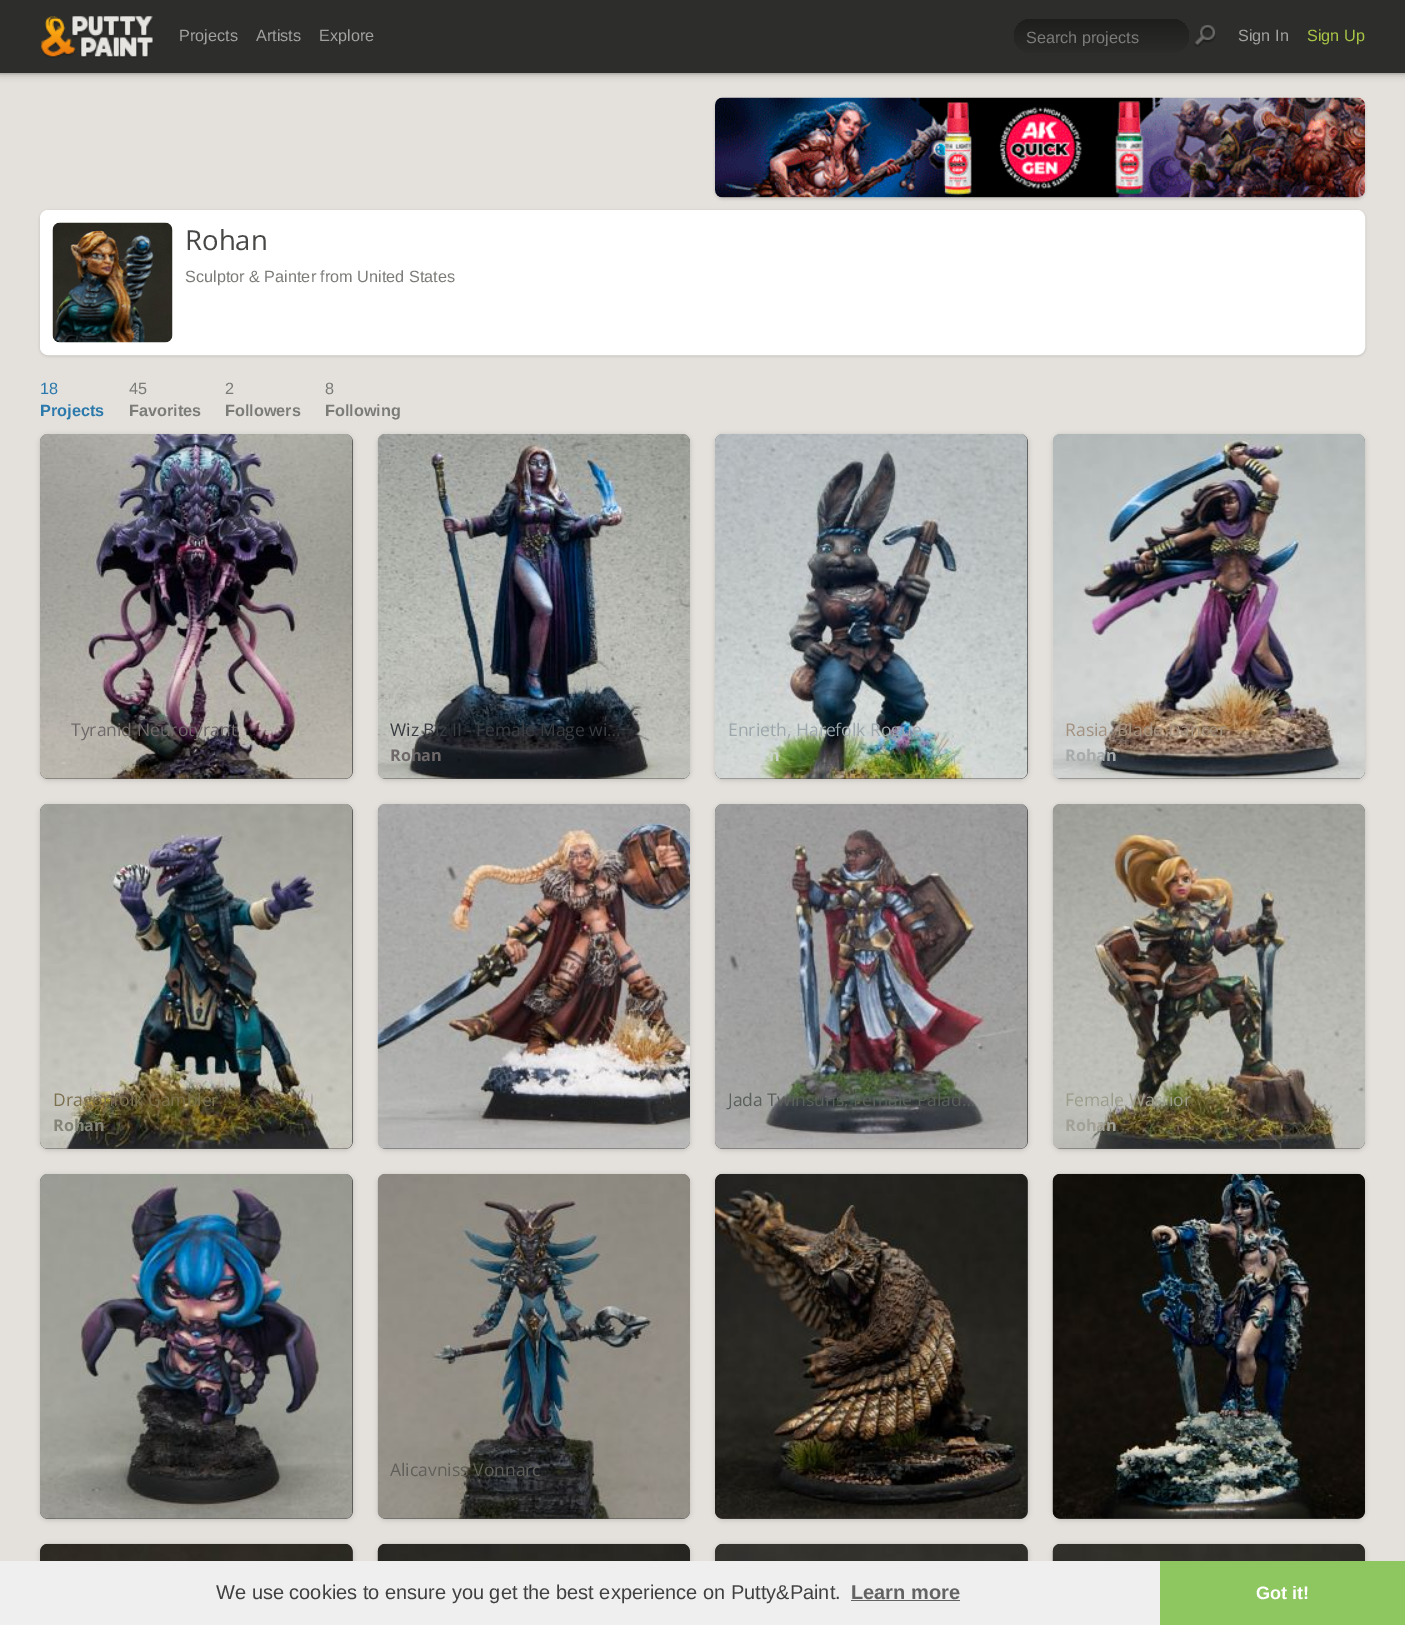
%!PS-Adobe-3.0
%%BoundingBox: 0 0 1405 1625
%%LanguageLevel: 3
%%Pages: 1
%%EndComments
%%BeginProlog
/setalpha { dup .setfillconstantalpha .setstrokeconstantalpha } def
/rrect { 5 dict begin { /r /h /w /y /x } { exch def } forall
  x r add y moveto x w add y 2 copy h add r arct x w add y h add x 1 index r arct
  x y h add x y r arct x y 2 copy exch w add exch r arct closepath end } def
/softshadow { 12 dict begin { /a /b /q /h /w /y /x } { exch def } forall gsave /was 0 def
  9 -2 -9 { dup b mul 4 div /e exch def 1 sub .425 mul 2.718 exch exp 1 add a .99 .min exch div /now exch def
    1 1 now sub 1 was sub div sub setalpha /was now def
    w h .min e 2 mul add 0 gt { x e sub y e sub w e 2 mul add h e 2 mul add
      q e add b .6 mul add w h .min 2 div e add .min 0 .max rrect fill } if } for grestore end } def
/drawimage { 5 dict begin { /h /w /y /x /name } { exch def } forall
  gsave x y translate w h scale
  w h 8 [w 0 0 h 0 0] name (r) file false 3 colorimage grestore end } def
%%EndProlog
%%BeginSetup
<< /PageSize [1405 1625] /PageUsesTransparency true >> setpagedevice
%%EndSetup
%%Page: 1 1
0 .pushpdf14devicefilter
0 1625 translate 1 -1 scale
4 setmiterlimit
0.894 0.882 0.867 setrgbcolor
0 0 1405 1625 rectfill
0 setgray
0 1 1405 73 0 0.5 0.1 softshadow
0 1 1405 73 0 4 0.3 softshadow
0.176 0.176 0.173 setrgbcolor
0 0 1405 73 rectfill
(images/1.raw) 41 16 112 42 drawimage
gsave 1014 19 175 34 17 rrect clip newpath
<< /ShadingType 2 /ColorSpace /DeviceRGB /Coords [1101 19 1101 53] /Extend [true true] /Function << /FunctionType 2 /Domain [0 1] /C0 [0.118 0.118 0.114] /C1 [0.169 0.169 0.165] /N 1 >> >> shfill grestore
(images/2.raw) 1194 25 22 22 drawimage
0 setgray
715 99 650 100 8 1.5 0.15 softshadow
(images/3.raw) 715 97 650 101 drawimage
40 211 1325 145 8 1.5 0.15 softshadow
1 setgray
40.5 210.5 1324 144 7.5 rrect gsave fill grestore
stroke
(images/4.raw) 52 222 121 121 drawimage
0 setgray
40 435 313 345 8 2.5 0.15 softshadow
0.278 0.278 0.275 setrgbcolor
40 434 313 345 8 rrect fill
(images/5.raw) 40 433 313 346 drawimage
0 setgray
378 435 312 345 8 2.5 0.15 softshadow
0.278 0.278 0.275 setrgbcolor
378 434 312 345 8 rrect fill
(images/6.raw) 377 433 313 346 drawimage
0 setgray
715 435 313 345 8 2.5 0.15 softshadow
0.278 0.278 0.275 setrgbcolor
715 434 313 345 8 rrect fill
(images/7.raw) 715 434 313 345 drawimage
0 setgray
1053 435 312 345 8 2.5 0.15 softshadow
0.278 0.278 0.275 setrgbcolor
1053 434 312 345 8 rrect fill
(images/8.raw) 1052 434 313 345 drawimage
0 setgray
40 805 313 345 8 2.5 0.15 softshadow
0.278 0.278 0.275 setrgbcolor
40 804 313 345 8 rrect fill
(images/9.raw) 40 803 313 346 drawimage
0 setgray
378 805 312 345 8 2.5 0.15 softshadow
0.278 0.278 0.275 setrgbcolor
378 804 312 345 8 rrect fill
(images/10.raw) 377 804 313 345 drawimage
0 setgray
715 805 313 345 8 2.5 0.15 softshadow
0.278 0.278 0.275 setrgbcolor
715 804 313 345 8 rrect fill
(images/11.raw) 715 803 313 346 drawimage
0 setgray
1053 805 312 345 8 2.5 0.15 softshadow
0.278 0.278 0.275 setrgbcolor
1053 804 312 345 8 rrect fill
(images/12.raw) 1052 803 313 346 drawimage
0 setgray
40 1175 313 345 8 2.5 0.15 softshadow
0.278 0.278 0.275 setrgbcolor
40 1174 313 345 8 rrect fill
(images/13.raw) 40 1173 313 346 drawimage
0 setgray
378 1175 312 345 8 2.5 0.15 softshadow
0.278 0.278 0.275 setrgbcolor
378 1174 312 345 8 rrect fill
(images/14.raw) 377 1173 313 346 drawimage
0 setgray
715 1175 313 345 8 2.5 0.15 softshadow
0.278 0.278 0.275 setrgbcolor
715 1174 313 345 8 rrect fill
(images/15.raw) 715 1173 313 346 drawimage
0 setgray
1053 1175 312 345 8 2.5 0.15 softshadow
0.278 0.278 0.275 setrgbcolor
1053 1174 312 345 8 rrect fill
(images/16.raw) 1052 1173 313 346 drawimage
0 setgray
40 1545 313 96 8 2.5 0.15 softshadow
0.278 0.278 0.275 setrgbcolor
40 1544 313 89 8 rrect fill
(images/17.raw) 40 1543 313 18 drawimage
0 setgray
378 1545 312 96 8 2.5 0.15 softshadow
(images/18.raw) 377 1543 313 18 drawimage
715 1545 313 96 8 2.5 0.15 softshadow
0.278 0.278 0.275 setrgbcolor
715 1544 313 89 8 rrect fill
(images/19.raw) 715 1543 313 18 drawimage
0 setgray
1053 1545 312 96 8 2.5 0.15 softshadow
(images/20.raw) 1052 1543 313 18 drawimage
0.937 setgray
0 1561 1160 64 rectfill
0.388 setgray
851 1600 109 1 rectfill
0.557 0.78 0.376 setrgbcolor
1160 1561 245 64 rectfill
/LiberationSans-Regular [16.25 0 0 -16.25 0 0] selectfont
0.631 0.631 0.624 setrgbcolor
179 41 moveto (Projects) show
256 41 moveto (Artists) show
319 41 moveto (Explore) show
gsave
1026 28 150 18 rectclip
0.482 0.482 0.471 setrgbcolor
1026 43 moveto (Search projects) show
grestore
1238 41 moveto (Sign In) show
0.655 0.769 0.267 setrgbcolor
1307 41 moveto (Sign Up) show
/OpenSans-Regular [27.5 0 0 -27.5 0 0] selectfont
0.278 0.278 0.275 setrgbcolor
185 250 moveto (Rohan) show
/LiberationSans-Regular [16.25 0 0 -16.25 0 0] selectfont
0.482 0.482 0.471 setrgbcolor
185 282 moveto (Sculptor & Painter from United States) show
0.173 0.475 0.675 setrgbcolor
40 394 moveto (18) show
/LiberationSans-Bold [16.25 0 0 -16.25 0 0] selectfont
40 416 moveto (Projects) show
/LiberationSans-Regular [16.25 0 0 -16.25 0 0] selectfont
0.482 0.482 0.471 setrgbcolor
129 394 moveto (45) show
/LiberationSans-Bold [16.25 0 0 -16.25 0 0] selectfont
129 416 moveto (Favorites) show
/LiberationSans-Regular [16.25 0 0 -16.25 0 0] selectfont
225 394 moveto (2) show
/LiberationSans-Bold [16.25 0 0 -16.25 0 0] selectfont
225 416 moveto (Followers) show
/LiberationSans-Regular [16.25 0 0 -16.25 0 0] selectfont
325 394 moveto (8) show
/LiberationSans-Bold [16.25 0 0 -16.25 0 0] selectfont
325 416 moveto (Following) show
/OpenSans-Regular [17.5 0 0 -17.5 0 0] selectfont
0.439 0.412 0.416 setrgbcolor
71 736 moveto (Tyranid Neurotyrant) show
0.224 0.239 0.255 setrgbcolor
390 736 moveto (Wiz Biz II - Female Mage wi…) show
/OpenSans-Bold [16.25 0 0 -16.25 0 0] selectfont
0.439 0.412 0.416 setrgbcolor
390 761 moveto (Rohan) show
/OpenSans-Regular [17.5 0 0 -17.5 0 0] selectfont
0.616 0.655 0.671 setrgbcolor
728 736 moveto (Enrieth, Harefolk Rogue) show
/OpenSans-Bold [16.25 0 0 -16.25 0 0] selectfont
0.788 0.824 0.776 setrgbcolor
769 761 moveto (n) show
/OpenSans-Regular [17.5 0 0 -17.5 0 0] selectfont
0.639 0.569 0.498 setrgbcolor
1065 736 moveto (Rasia, Blade Dancer) show
/OpenSans-Bold [16.25 0 0 -16.25 0 0] selectfont
0.655 0.671 0.671 setrgbcolor
1065 761 moveto (Rohan) show
/OpenSans-Regular [17.5 0 0 -17.5 0 0] selectfont
0.486 0.443 0.31 setrgbcolor
53 1106 moveto (Dragonfolk Gambler) show
/OpenSans-Bold [16.25 0 0 -16.25 0 0] selectfont
0.518 0.518 0.471 setrgbcolor
53 1131 moveto (Rohan) show
/OpenSans-Regular [17.5 0 0 -17.5 0 0] selectfont
0.349 0.373 0.353 setrgbcolor
728 1106 moveto (Jada Twinsuns, Female Palad…) show
0.612 0.612 0.541 setrgbcolor
1065 1106 moveto (Female Warrior) show
/OpenSans-Bold [16.25 0 0 -16.25 0 0] selectfont
0.635 0.631 0.592 setrgbcolor
1065 1131 moveto (Rohan) show
/OpenSans-Regular [17.5 0 0 -17.5 0 0] selectfont
0.376 0.373 0.349 setrgbcolor
390 1476 moveto (Alicavniss Vonnarc) show
/LiberationSans-Regular [20 0 0 -20 0 0] selectfont
0.251 setgray
216 1599 moveto (We use cookies to ensure you get the best experience on Putty&Paint.) show
/LiberationSans-Bold [20 0 0 -20 0 0] selectfont
0.388 setgray
851 1599 moveto (Learn more) show
/LiberationSans-Bold [18 0 0 -18 0 0] selectfont
1 setgray
1256 1599 moveto (Got it!) show
.poppdf14devicefilter showpage
%%EOF
